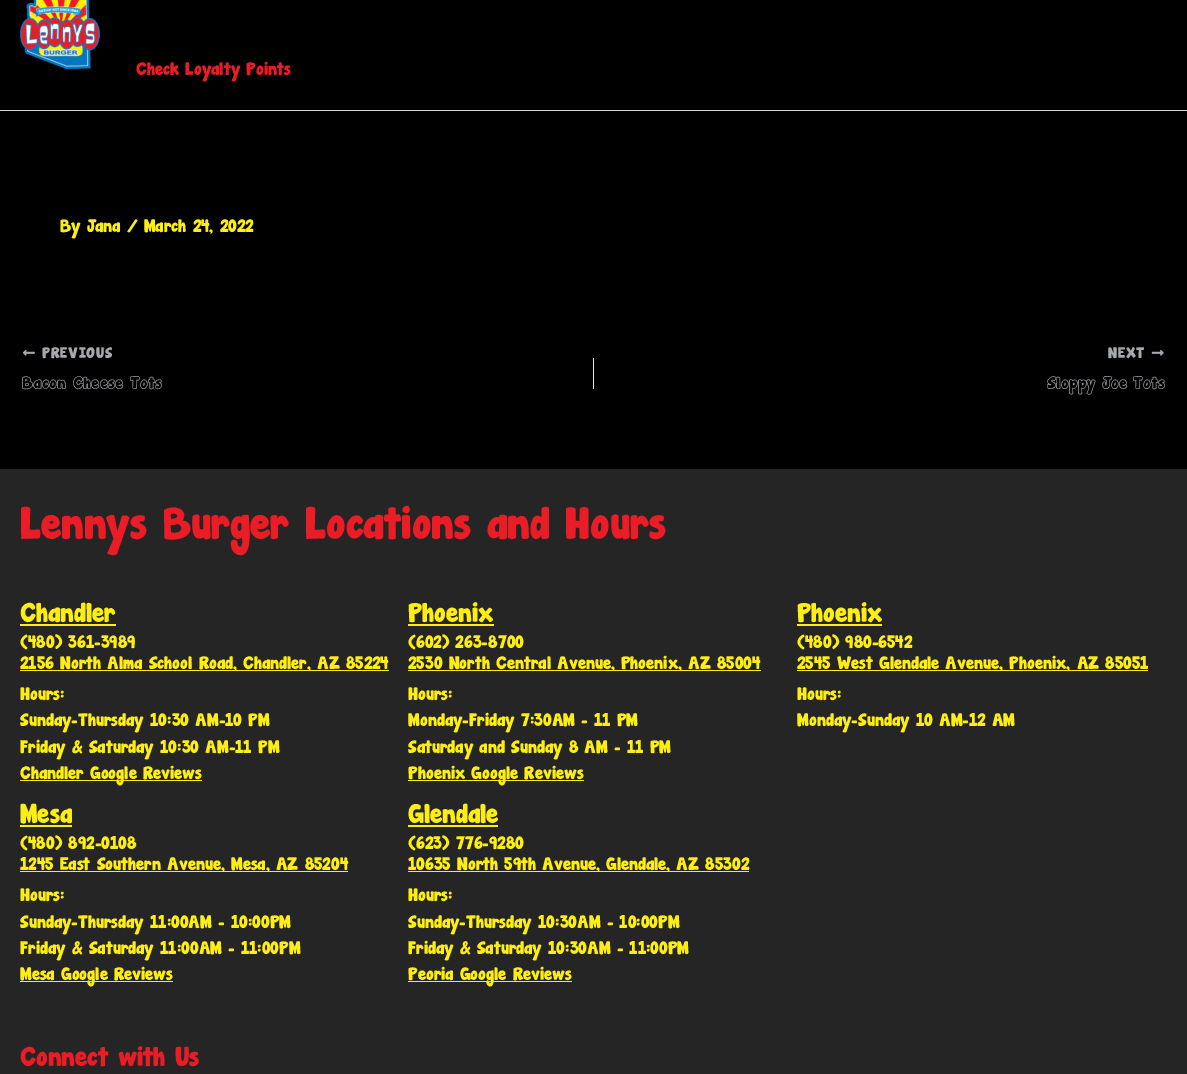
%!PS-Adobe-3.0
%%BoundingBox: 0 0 1187 1074
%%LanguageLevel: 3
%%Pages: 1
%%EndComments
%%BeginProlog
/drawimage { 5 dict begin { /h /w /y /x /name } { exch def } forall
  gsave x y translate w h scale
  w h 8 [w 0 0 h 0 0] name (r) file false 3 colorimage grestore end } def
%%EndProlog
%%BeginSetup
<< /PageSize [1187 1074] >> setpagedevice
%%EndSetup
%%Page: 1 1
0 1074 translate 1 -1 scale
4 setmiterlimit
0 setgray
0 0 1187 1074 rectfill
0.82 0.835 0.859 setrgbcolor
0 110 1187 1 rectfill
(images/1.raw) 20 0 80 69 drawimage
(images/2.raw) 22 349 13 7 drawimage
0.882 0.91 0.929 setrgbcolor
593 358 1 31 rectfill
(images/3.raw) 1151 349 13 7 drawimage
0.145 setgray
0 469 1187 605 rectfill
0.988 0.929 0.075 setrgbcolor
20 624 96 2 rectfill
20 670 369 1 rectfill
20 780 182 1 rectfill
408 624 86 2 rectfill
408 670 353 1 rectfill
408 780 176 1 rectfill
797 624 85 2 rectfill
797 670 351 1 rectfill
20 825 52 2 rectfill
20 871 328 1 rectfill
20 981 153 1 rectfill
408 825 90 2 rectfill
408 871 341 1 rectfill
408 981 164 1 rectfill
/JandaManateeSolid-Regular [16 0 0 -16 0 0] selectfont
0.918 0.11 0.149 setrgbcolor
136 75 moveto (Check Loyalty Points) show
0.988 0.929 0.075 setrgbcolor
60 232 moveto (By Jana / March 24, 2022) show
/JandaManateeSolid-Regular [13.5 0 0 -13.5 0 0] selectfont
0.651 0.663 0.678 setrgbcolor
42 358 moveto 0.75 0 (PREVIOUS) ashow
/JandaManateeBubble-Regular [16 0 0 -16 0 0] selectfont
22 389 moveto (Bacon Cheese Tots) show
/JandaManateeSolid-Regular [13.5 0 0 -13.5 0 0] selectfont
1108 358 moveto 0.75 0 (NEXT) ashow
/JandaManateeBubble-Regular [16 0 0 -16 0 0] selectfont
1047 389 moveto (Sloppy Joe Tots) show
/JandaManateeSolid-Regular [40 0 0 -40 0 0] selectfont
0.918 0.11 0.149 setrgbcolor
20 539 moveto (Lennys Burger Locations and Hours) show
/JandaManateeSolid-Regular [24 0 0 -24 0 0] selectfont
0.988 0.929 0.075 setrgbcolor
20 622 moveto (Chandler) show
/JandaManateeSolid-Regular [16 0 0 -16 0 0] selectfont
20 648 moveto (\(480\) 361-3989) show
20 669 moveto (2156 North Alma School Road, Chandler, AZ 85224) show
20 700 moveto (Hours:) show
20 726 moveto (Sunday-Thursday 10:30 AM-10 PM) show
20 753 moveto (Friday & Saturday 10:30 AM-11 PM) show
20 779 moveto (Chandler Google Reviews) show
/JandaManateeSolid-Regular [24 0 0 -24 0 0] selectfont
408 622 moveto (Phoenix) show
/JandaManateeSolid-Regular [16 0 0 -16 0 0] selectfont
408 648 moveto (\(602\) 263-8700) show
408 669 moveto (2530 North Central Avenue, Phoenix, AZ 85004) show
408 700 moveto (Hours:) show
408 726 moveto (Monday-Friday 7:30AM – 11 PM) show
408 753 moveto (Saturday and Sunday 8 AM – 11 PM) show
408 779 moveto (Phoenix Google Reviews) show
/JandaManateeSolid-Regular [24 0 0 -24 0 0] selectfont
797 622 moveto (Phoenix) show
/JandaManateeSolid-Regular [16 0 0 -16 0 0] selectfont
797 648 moveto (\(480\) 980-6542) show
797 669 moveto (2545 West Glendale Avenue, Phoenix, AZ 85051) show
797 700 moveto (Hours:) show
797 726 moveto (Monday-Sunday 10 AM-12 AM) show
/JandaManateeSolid-Regular [24 0 0 -24 0 0] selectfont
20 823 moveto (Mesa) show
/JandaManateeSolid-Regular [16 0 0 -16 0 0] selectfont
20 849 moveto (\(480\) 892-0108) show
20 870 moveto (1245 East Southern Avenue, Mesa, AZ 85204) show
20 901 moveto (Hours:) show
20 928 moveto (Sunday-Thursday 11:00AM – 10:00PM) show
20 954 moveto (Friday & Saturday 11:00AM – 11:00PM) show
20 980 moveto (Mesa Google Reviews) show
/JandaManateeSolid-Regular [24 0 0 -24 0 0] selectfont
408 823 moveto (Glendale) show
/JandaManateeSolid-Regular [16 0 0 -16 0 0] selectfont
408 849 moveto (\(623\) 776-9280) show
408 870 moveto (10635 North 59th Avenue, Glendale, AZ 85302) show
408 901 moveto (Hours:) show
408 928 moveto (Sunday-Thursday 10:30AM – 10:00PM) show
408 954 moveto (Friday & Saturday 10:30AM – 11:00PM) show
408 980 moveto (Peoria Google Reviews) show
/JandaManateeSolid-Regular [24 0 0 -24 0 0] selectfont
0.918 0.11 0.149 setrgbcolor
20 1066 moveto (Connect with Us) show
showpage
%%EOF
